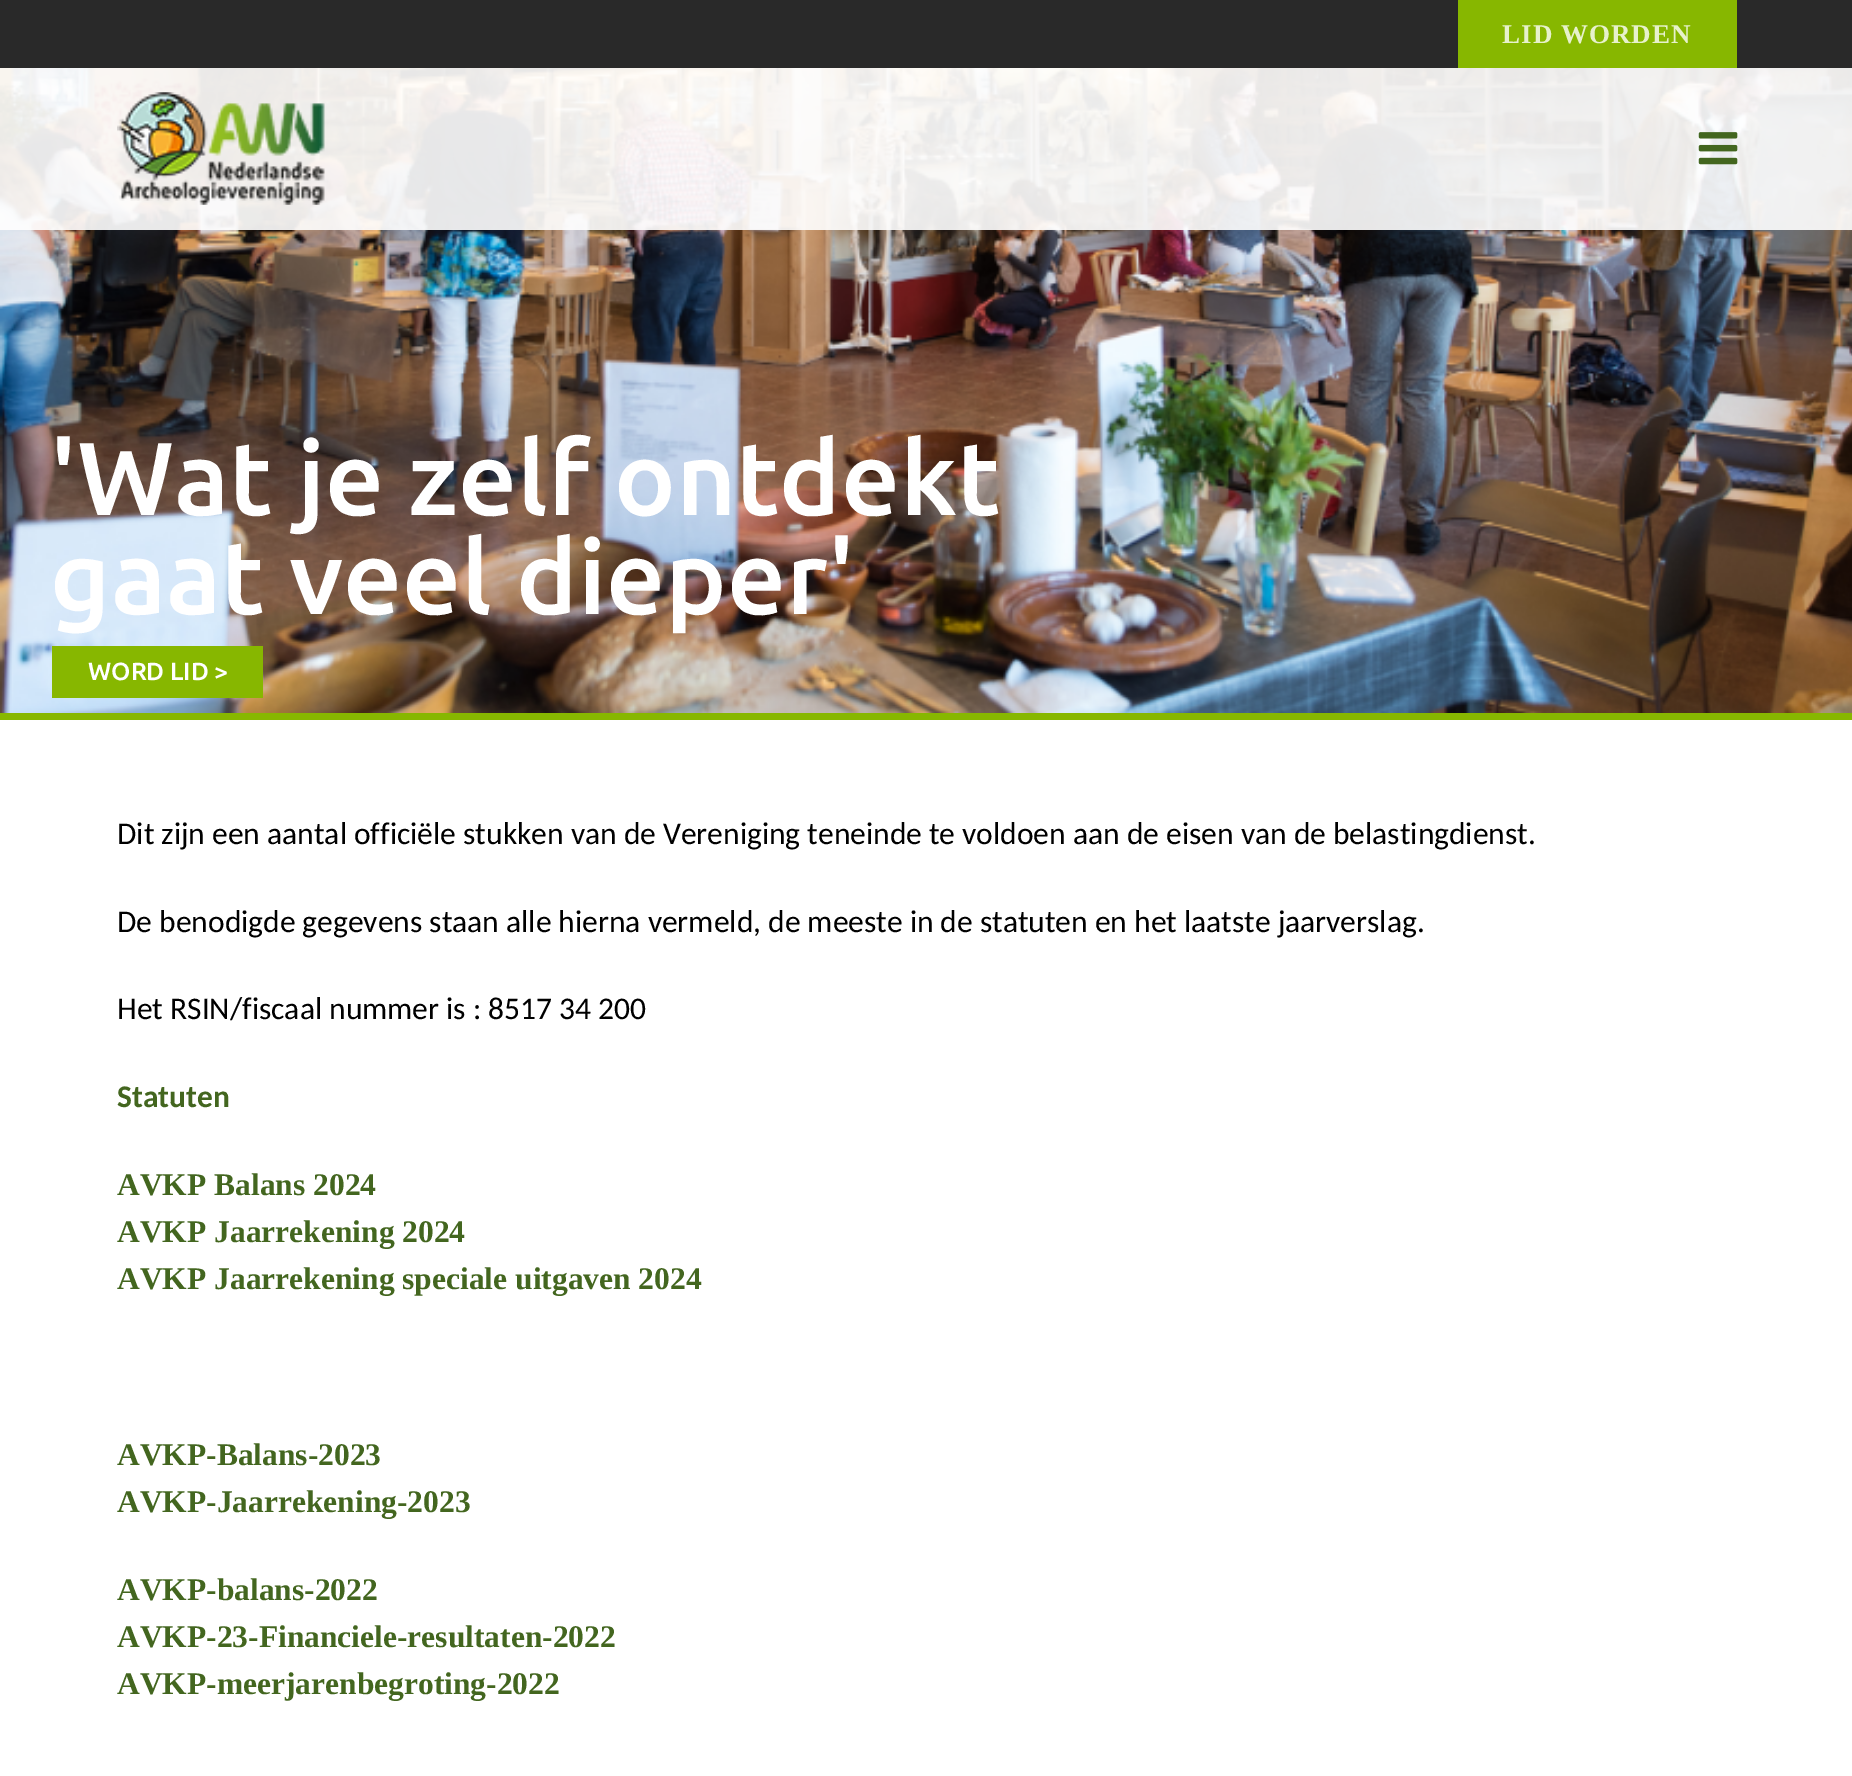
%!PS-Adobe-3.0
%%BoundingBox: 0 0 1852 1776
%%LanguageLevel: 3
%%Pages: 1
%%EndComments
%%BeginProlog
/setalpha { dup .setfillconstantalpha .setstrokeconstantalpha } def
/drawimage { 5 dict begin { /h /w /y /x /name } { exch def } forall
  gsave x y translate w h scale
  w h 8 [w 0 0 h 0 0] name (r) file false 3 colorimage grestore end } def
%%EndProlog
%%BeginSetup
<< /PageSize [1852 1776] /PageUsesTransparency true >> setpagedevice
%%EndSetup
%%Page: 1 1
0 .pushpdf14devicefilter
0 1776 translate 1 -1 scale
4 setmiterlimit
1 setgray
0 0 1852 1776 rectfill
0.161 setgray
0 0 1852 68 rectfill
0.529 0.718 0 setrgbcolor
1458 0 279 68 rectfill
(images/3.raw) 0 68 1852 645 drawimage
0.9 setalpha
1 setgray
0 68 1852 162 rectfill
1 setalpha
(images/1.raw) 117 92 208 113 drawimage
(images/2.raw) 1698 132 40 33 drawimage
0.529 0.718 0 setrgbcolor
0 713 1852 7 rectfill
52 646 211 52 rectfill
/LiberationSerif-Bold [27 0 0 -27 0 0] selectfont
0.906 0.945 0.8 setrgbcolor
1502 43 moveto 1 0 (LID WORDEN) ashow
/Ubuntu-Medium [103.5 0 0 -103.5 0 0] selectfont
1 setgray
50 515 moveto ('Wat je zelf ontdekt) show
50 614 moveto (gaat veel dieper') show
/Ubuntu-Medium [24.75 0 0 -24.75 0 0] selectfont
88 680 moveto (WORD LID >) show
/Carlito-Regular [31.5 0 0 -31.5 0 0] selectfont
0 setgray
117 844 moveto (Dit zijn een aantal officiële stukken van de Vereniging teneinde te voldoen aan de eisen van de belastingdienst.) show
117 932 moveto (De benodigde gegevens staan alle hierna vermeld, de meeste in de statuten en het laatste jaarverslag.) show
117 1019 moveto (Het RSIN/fiscaal nummer is : 8517 34 200) show
/Carlito-Bold [31.5 0 0 -31.5 0 0] selectfont
0.263 0.4 0.122 setrgbcolor
117 1107 moveto (Statuten) show
/LiberationSerif-Bold [31.5 0 0 -31.5 0 0] selectfont
117 1195 moveto (AVKP Balans 2024) show
117 1242 moveto (AVKP Jaarrekening 2024) show
117 1289 moveto (AVKP Jaarrekening speciale uitgaven 2024) show
117 1465 moveto (AVKP-Balans-2023) show
117 1512 moveto (AVKP-Jaarrekening-2023) show
117 1600 moveto (AVKP-balans-2022) show
117 1647 moveto (AVKP-23-Financiele-resultaten-2022) show
117 1694 moveto (AVKP-meerjarenbegroting-2022) show
.poppdf14devicefilter showpage
%%EOF
